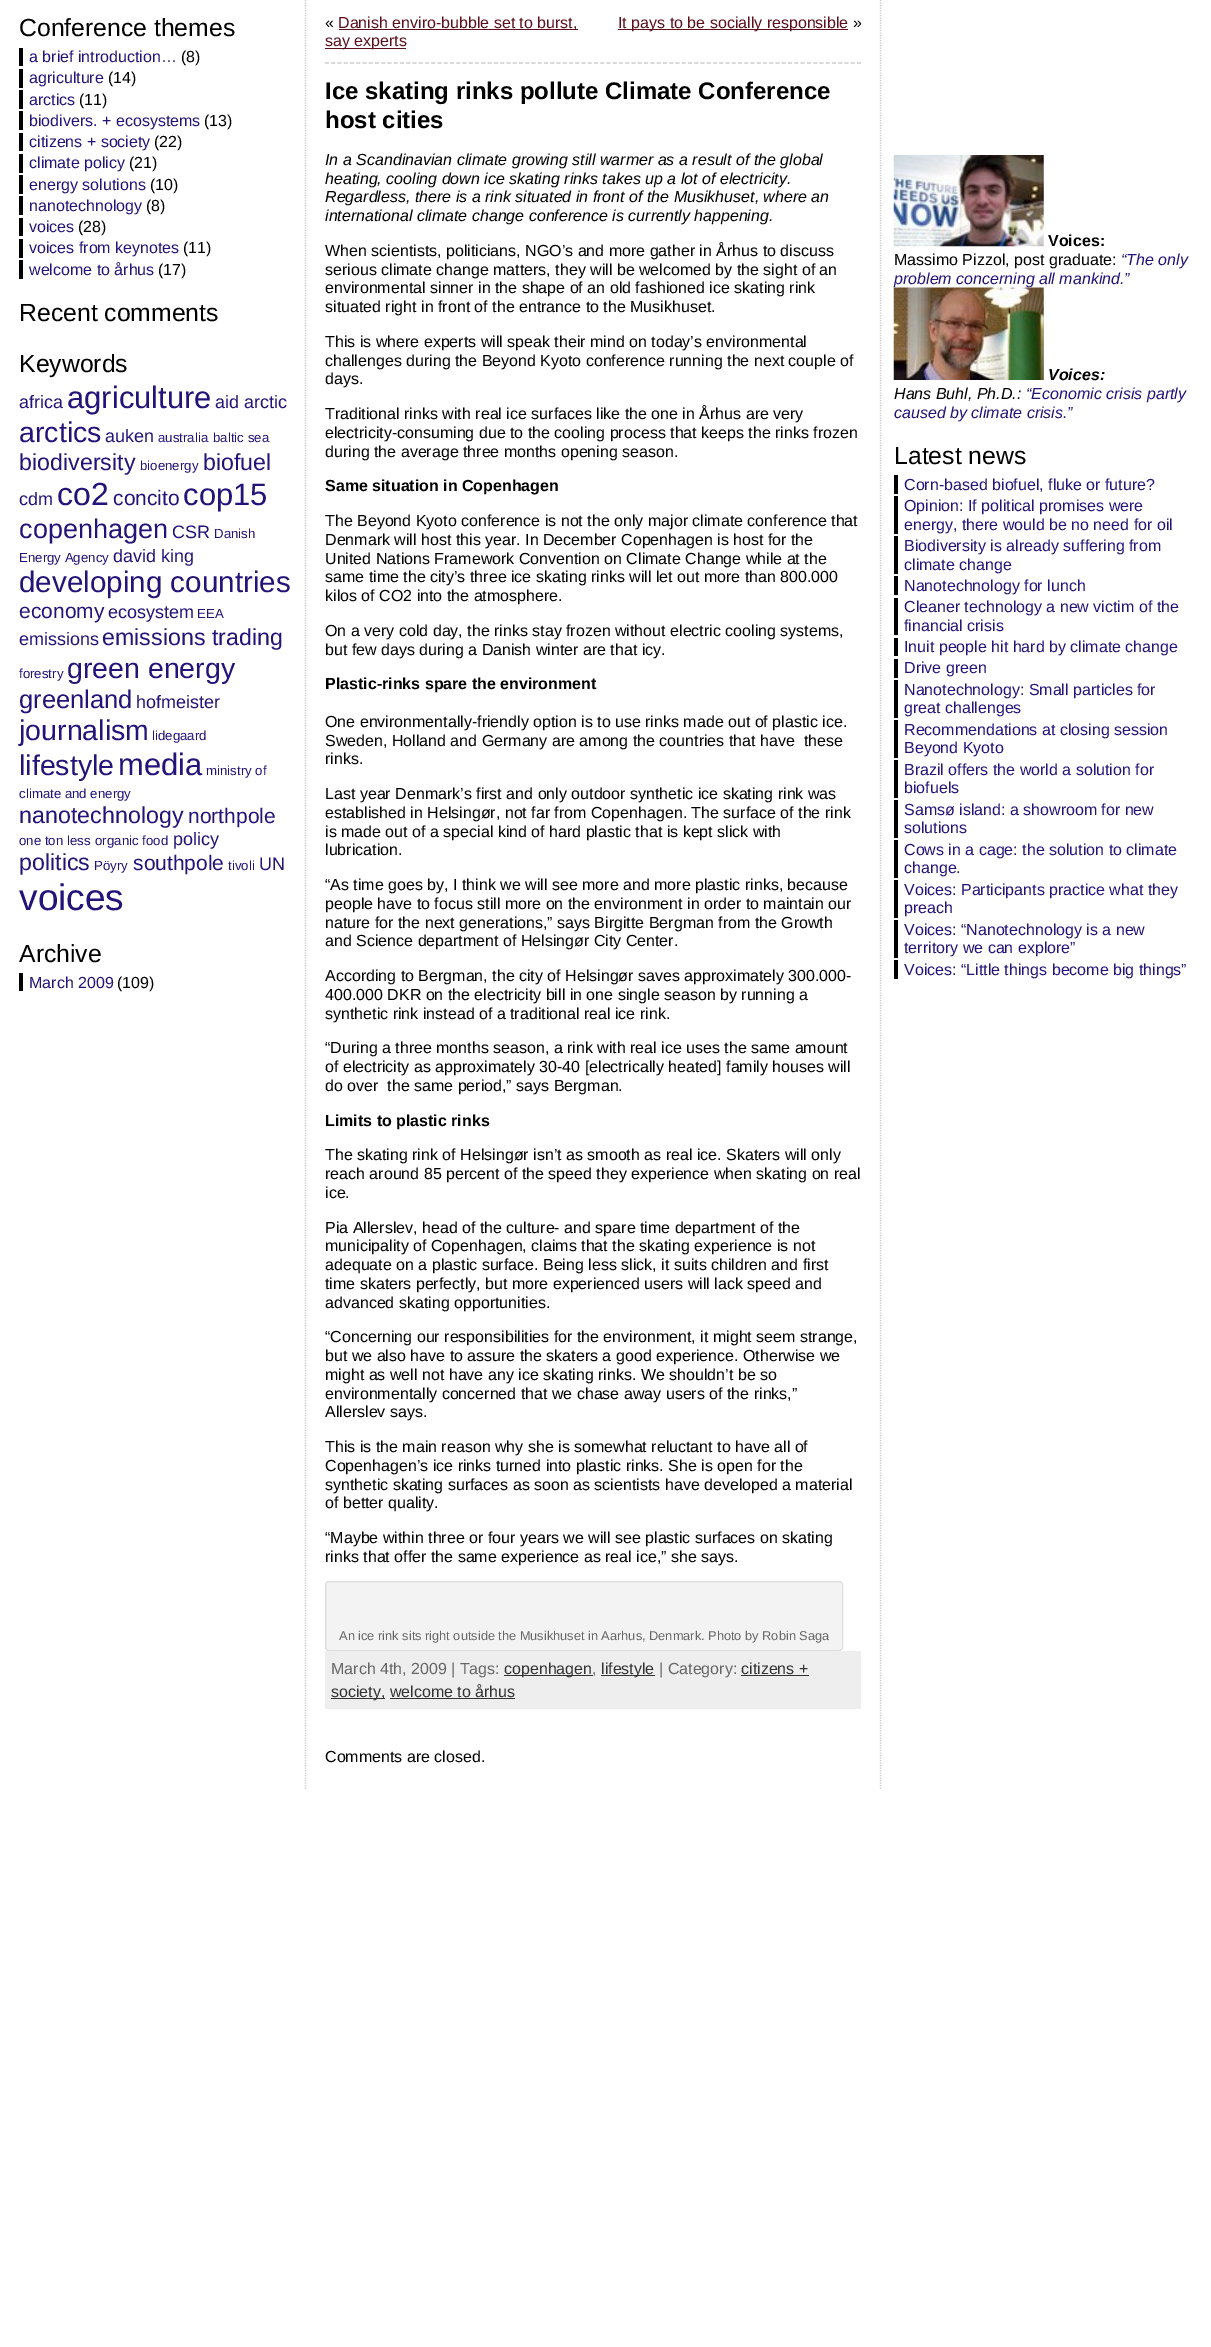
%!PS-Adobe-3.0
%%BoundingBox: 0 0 1211 2347
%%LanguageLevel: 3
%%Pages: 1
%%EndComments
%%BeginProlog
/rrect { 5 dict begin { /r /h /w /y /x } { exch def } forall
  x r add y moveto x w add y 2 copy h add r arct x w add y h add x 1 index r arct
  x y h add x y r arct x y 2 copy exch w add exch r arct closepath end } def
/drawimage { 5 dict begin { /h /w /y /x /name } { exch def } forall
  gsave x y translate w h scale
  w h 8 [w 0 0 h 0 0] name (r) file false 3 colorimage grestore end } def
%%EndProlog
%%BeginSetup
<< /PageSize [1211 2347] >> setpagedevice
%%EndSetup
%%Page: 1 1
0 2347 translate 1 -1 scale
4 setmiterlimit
1 setgray
0 0 1211 2347 rectfill
0.8 setgray
1.2 setlinewidth
[1.25 1.25] 0 setdash
newpath 305.5 0 moveto 305.5 1790 lineto stroke
0 setgray
19 48 4 18 rectfill
19 69 4 19 rectfill
19 90 4 19 rectfill
19 111 4 19 rectfill
19 133 4 18 rectfill
19 154 4 19 rectfill
19 175 4 19 rectfill
19 196 4 19 rectfill
19 218 4 18 rectfill
19 239 4 19 rectfill
19 260 4 19 rectfill
19 973 4 18 rectfill
0.8 setgray
[3.75 2.51] 0 setdash
newpath 325 63 moveto 861 63 lineto stroke
0.361 0.063 0.11 setrgbcolor
339 29 239 1 rectfill
325 48 81 1 rectfill
618 29 230 1 rectfill
0.953 setgray
325.5 1581.5 517 69 3.5 rrect gsave fill grestore
0.867 setgray
1 setlinewidth
[] 0 setdash
stroke
0.933 setgray
325 1651 536 58 rectfill
0.2 setgray
504 1675 89 1 rectfill
601 1675 54 1 rectfill
741 1675 68 1 rectfill
331 1698 54 1 rectfill
390 1698 125 1 rectfill
0.8 setgray
1.2 setlinewidth
[1.25 1.25] 0 setdash
newpath 880.5 0 moveto 880.5 1790 lineto stroke
(images/1.raw) 893 155 151 92 drawimage
0 setgray
894 475 4 19 rectfill
894 496 4 38 rectfill
894 536 4 38 rectfill
894 576 4 19 rectfill
894 598 4 37 rectfill
894 638 4 18 rectfill
894 659 4 19 rectfill
894 680 4 38 rectfill
894 720 4 38 rectfill
894 760 4 38 rectfill
894 800 4 38 rectfill
894 840 4 38 rectfill
894 880 4 38 rectfill
894 920 4 38 rectfill
894 960 4 19 rectfill
/LiberationSans-Regular [24.75 0 0 -24.75 0 0] selectfont
19 36 moveto (Conference themes) show
/LiberationSans-Regular [16 0 0 -16 0 0] selectfont
0.141 0.075 0.471 setrgbcolor
29 62 moveto (a brief introduction…) show
0 setgray
181 62 moveto (\(8\)) show
0.141 0.075 0.471 setrgbcolor
29 83 moveto (agriculture) show
0 setgray
108 83 moveto (\(14\)) show
0.141 0.075 0.471 setrgbcolor
29 105 moveto (arctics) show
0 setgray
79 105 moveto (\(11\)) show
0.141 0.075 0.471 setrgbcolor
29 126 moveto (biodivers. + ecosystems) show
0 setgray
204 126 moveto (\(13\)) show
0.141 0.075 0.471 setrgbcolor
29 147 moveto (citizens + society) show
0 setgray
154 147 moveto (\(22\)) show
0.141 0.075 0.471 setrgbcolor
29 168 moveto (climate policy) show
0 setgray
129 168 moveto (\(21\)) show
0.141 0.075 0.471 setrgbcolor
29 190 moveto (energy solutions) show
0 setgray
150 190 moveto (\(10\)) show
0.141 0.075 0.471 setrgbcolor
29 211 moveto (nanotechnology) show
0 setgray
146 211 moveto (\(8\)) show
0.141 0.075 0.471 setrgbcolor
29 232 moveto (voices) show
0 setgray
78 232 moveto (\(28\)) show
0.141 0.075 0.471 setrgbcolor
29 253 moveto (voices from keynotes) show
0 setgray
183 253 moveto (\(11\)) show
0.141 0.075 0.471 setrgbcolor
29 275 moveto (welcome to århus) show
0 setgray
158 275 moveto (\(17\)) show
/LiberationSans-Regular [24.75 0 0 -24.75 0 0] selectfont
19 321 moveto (Recent comments) show
19 372 moveto (Keywords) show
/LiberationSans-Regular [18 0 0 -18 0 0] selectfont
0.141 0.075 0.471 setrgbcolor
19 408 moveto (africa) show
/LiberationSans-Regular [31 0 0 -31 0 0] selectfont
67 408 moveto (agriculture) show
/LiberationSans-Regular [18 0 0 -18 0 0] selectfont
215 408 moveto (aid) show
244 408 moveto (arctic) show
/LiberationSans-Regular [28.5 0 0 -28.5 0 0] selectfont
19 442 moveto (arctics) show
/LiberationSans-Regular [18 0 0 -18 0 0] selectfont
105 442 moveto (auken) show
/LiberationSans-Regular [13.25 0 0 -13.25 0 0] selectfont
158 442 moveto (australia) show
213 442 moveto (baltic sea) show
/LiberationSans-Regular [23.25 0 0 -23.25 0 0] selectfont
19 470 moveto (biodiversity) show
/LiberationSans-Regular [13.25 0 0 -13.25 0 0] selectfont
140 470 moveto (bioenergy) show
/LiberationSans-Regular [23.25 0 0 -23.25 0 0] selectfont
203 470 moveto (biofuel) show
/LiberationSans-Regular [18 0 0 -18 0 0] selectfont
19 505 moveto (cdm) show
/LiberationSans-Regular [32 0 0 -32 0 0] selectfont
57 505 moveto (co2) show
/LiberationSans-Regular [21 0 0 -21 0 0] selectfont
113 505 moveto (concito) show
/LiberationSans-Regular [31 0 0 -31 0 0] selectfont
183 505 moveto (cop15) show
/LiberationSans-Regular [27 0 0 -27 0 0] selectfont
19 538 moveto (copenhagen) show
/LiberationSans-Regular [18 0 0 -18 0 0] selectfont
172 538 moveto (CSR) show
/LiberationSans-Regular [13.25 0 0 -13.25 0 0] selectfont
214 538 moveto (Danish) show
19 562 moveto (Energy Agency) show
/LiberationSans-Regular [18 0 0 -18 0 0] selectfont
113 562 moveto (david king) show
/LiberationSans-Regular [29.6 0 0 -29.6 0 0] selectfont
19 592 moveto (developing countries) show
/LiberationSans-Regular [21 0 0 -21 0 0] selectfont
19 618 moveto (economy) show
/LiberationSans-Regular [18 0 0 -18 0 0] selectfont
108 618 moveto (ecosystem) show
/LiberationSans-Regular [13.25 0 0 -13.25 0 0] selectfont
197 618 moveto (EEA) show
/LiberationSans-Regular [18 0 0 -18 0 0] selectfont
19 645 moveto (emissions) show
/LiberationSans-Regular [23.25 0 0 -23.25 0 0] selectfont
102 645 moveto (emissions trading) show
/LiberationSans-Regular [13.25 0 0 -13.25 0 0] selectfont
19 678 moveto (forestry) show
/LiberationSans-Regular [28.5 0 0 -28.5 0 0] selectfont
67 678 moveto (green energy) show
/LiberationSans-Regular [25.5 0 0 -25.5 0 0] selectfont
19 708 moveto (greenland) show
/LiberationSans-Regular [18 0 0 -18 0 0] selectfont
136 708 moveto (hofmeister) show
/LiberationSans-Regular [28.5 0 0 -28.5 0 0] selectfont
19 740 moveto (journalism) show
/LiberationSans-Regular [13.25 0 0 -13.25 0 0] selectfont
152 740 moveto (lidegaard) show
/LiberationSans-Regular [28.5 0 0 -28.5 0 0] selectfont
19 775 moveto (lifestyle) show
/LiberationSans-Regular [31 0 0 -31 0 0] selectfont
118 775 moveto (media) show
/LiberationSans-Regular [13.25 0 0 -13.25 0 0] selectfont
206 775 moveto (ministry of) show
19 798 moveto (climate and energy) show
/LiberationSans-Regular [23.25 0 0 -23.25 0 0] selectfont
19 823 moveto (nanotechnology) show
/LiberationSans-Regular [21 0 0 -21 0 0] selectfont
188 823 moveto (northpole) show
/LiberationSans-Regular [13.25 0 0 -13.25 0 0] selectfont
19 845 moveto (one ton less) show
95 845 moveto (organic food) show
/LiberationSans-Regular [18 0 0 -18 0 0] selectfont
173 845 moveto (policy) show
/LiberationSans-Regular [23.25 0 0 -23.25 0 0] selectfont
19 870 moveto (politics) show
/LiberationSans-Regular [13.25 0 0 -13.25 0 0] selectfont
94 870 moveto (Pöyry) show
/LiberationSans-Regular [21 0 0 -21 0 0] selectfont
133 870 moveto (southpole) show
/LiberationSans-Regular [13.25 0 0 -13.25 0 0] selectfont
228 870 moveto (tivoli) show
/LiberationSans-Regular [18 0 0 -18 0 0] selectfont
259 870 moveto (UN) show
/LiberationSans-Regular [37 0 0 -37 0 0] selectfont
19 910 moveto (voices) show
/LiberationSans-Regular [24.75 0 0 -24.75 0 0] selectfont
0 setgray
19 962 moveto (Archive) show
/LiberationSans-Regular [16 0 0 -16 0 0] selectfont
0.141 0.075 0.471 setrgbcolor
29 988 moveto (March 2009) show
0 setgray
117 988 moveto (\(109\)) show
325 28 moveto («) show
0.361 0.063 0.11 setrgbcolor
338 28 moveto (Danish enviro-bubble set to burst,) show
325 46 moveto (say experts) show
618 28 moveto (It pays to be socially responsible) show
0 setgray
853 28 moveto (») show
/LiberationSans-Bold [24 0 0 -24 0 0] selectfont
325 99 moveto (Ice skating rinks pollute Climate Conference) show
325 128 moveto (host cities) show
/LiberationSans-Italic [16 0 0 -16 0 0] selectfont
325 165 moveto (In a Scandinavian climate growing still warmer as a result of the global) show
325 184 moveto (heating, cooling down ice skating rinks takes up a lot of electricity.) show
325 202 moveto (Regardless, there is a rink situated in front of the Musikhuset, where an) show
325 221 moveto (international climate change conference is currently happening.) show
/LiberationSans-Regular [16 0 0 -16 0 0] selectfont
325 256 moveto (When scientists, politicians, NGO’s and more gather in Århus to discuss) show
325 275 moveto (serious climate change matters, they will be welcomed by the sight of an) show
325 293 moveto (environmental sinner in the shape of an old fashioned ice skating rink) show
325 312 moveto (situated right in front of the entrance to the Musikhuset.) show
325 347 moveto (This is where experts will speak their mind on today’s environmental) show
325 366 moveto (challenges during the Beyond Kyoto conference running the next couple of) show
325 384 moveto (days.) show
325 419 moveto (Traditional rinks with real ice surfaces like the one in Århus are very) show
325 438 moveto (electricity-consuming due to the cooling process that keeps the rinks frozen) show
325 457 moveto (during the average three months opening season.) show
/LiberationSans-Bold [16 0 0 -16 0 0] selectfont
325 491 moveto (Same situation in Copenhagen) show
/LiberationSans-Regular [16 0 0 -16 0 0] selectfont
325 526 moveto (The Beyond Kyoto conference is not the only major climate conference that) show
325 545 moveto (Denmark will host this year. In December Copenhagen is host for the) show
325 564 moveto (United Nations Framework Convention on Climate Change while at the) show
325 582 moveto (same time the city’s three ice skating rinks will let out more than 800.000) show
325 601 moveto (kilos of CO2 into the atmosphere.) show
325 636 moveto (On a very cold day, the rinks stay frozen without electric cooling systems,) show
325 655 moveto (but few days during a Danish winter are that icy.) show
/LiberationSans-Bold [16 0 0 -16 0 0] selectfont
325 689 moveto (Plastic-rinks spare the environment) show
/LiberationSans-Regular [16 0 0 -16 0 0] selectfont
325 727 moveto (One environmentally-friendly option is to use rinks made out of plastic ice.) show
325 746 moveto (Sweden, Holland and Germany are among the countries that have  these) show
325 764 moveto (rinks.) show
325 799 moveto (Last year Denmark’s first and only outdoor synthetic ice skating rink was) show
325 818 moveto (established in Helsingør, not far from Copenhagen. The surface of the rink) show
325 837 moveto (is made out of a special kind of hard plastic that is kept slick with) show
325 855 moveto (lubrication.) show
325 890 moveto (“As time goes by, I think we will see more and more plastic rinks, because) show
325 909 moveto (people have to focus still more on the environment in order to maintain our) show
325 928 moveto (nature for the next generations,” says Birgitte Bergman from the Growth) show
325 946 moveto (and Science department of Helsingør City Center.) show
325 981 moveto (According to Bergman, the city of Helsingør saves approximately 300.000-) show
325 1000 moveto (400.000 DKR on the electricity bill in one single season by running a) show
325 1019 moveto (synthetic rink instead of a traditional real ice rink.) show
325 1053 moveto (“During a three months season, a rink with real ice uses the same amount) show
325 1072 moveto (of electricity as approximately 30-40 [electrically heated] family houses will) show
325 1091 moveto (do over  the same period,” says Bergman.) show
/LiberationSans-Bold [16 0 0 -16 0 0] selectfont
325 1126 moveto (Limits to plastic rinks) show
/LiberationSans-Regular [16 0 0 -16 0 0] selectfont
325 1160 moveto (The skating rink of Helsingør isn’t as smooth as real ice. Skaters will only) show
325 1179 moveto (reach around 85 percent of the speed they experience when skating on real) show
325 1198 moveto (ice.) show
325 1233 moveto (Pia Allerslev, head of the culture- and spare time department of the) show
325 1251 moveto (municipality of Copenhagen, claims that the skating experience is not) show
325 1270 moveto (adequate on a plastic surface. Being less slick, it suits children and first) show
325 1289 moveto (time skaters perfectly, but more experienced users will lack speed and) show
325 1308 moveto (advanced skating opportunities.) show
325 1342 moveto (“Concerning our responsibilities for the environment, it might seem strange,) show
325 1361 moveto (but we also have to assure the skaters a good experience. Otherwise we) show
325 1380 moveto (might as well not have any ice skating rinks. We shouldn’t be so) show
325 1399 moveto (environmentally concerned that we chase away users of the rinks,”) show
325 1417 moveto (Allerslev says.) show
325 1452 moveto (This is the main reason why she is somewhat reluctant to have all of) show
325 1471 moveto (Copenhagen’s ice rinks turned into plastic rinks. She is open for the) show
325 1490 moveto (synthetic skating surfaces as soon as scientists have developed a material) show
325 1508 moveto (of better quality.) show
325 1543 moveto (“Maybe within three or four years we will see plastic surfaces on skating) show
325 1562 moveto (rinks that offer the same experience as real ice,” she says.) show
/LiberationSans-Regular [12.8 0 0 -12.8 0 0] selectfont
0.4 setgray
339 1640 moveto (An ice rink sits right outside the Musikhuset in Aarhus, Denmark. Photo by Robin Saga) show
/LiberationSans-Regular [16 0 0 -16 0 0] selectfont
331 1674 moveto (March 4th, 2009 | Tags:) show
0.2 setgray
504 1674 moveto (copenhagen) show
0.4 setgray
592 1674 moveto (,) show
0.2 setgray
601 1674 moveto (lifestyle) show
0.4 setgray
659 1674 moveto (| Category:) show
0.2 setgray
741 1674 moveto (citizens +) show
331 1697 moveto (society, welcome to århus) show
0 setgray
325 1762 moveto (Comments are closed.) show
/LiberationSans-Bold [16 0 0 -16 0 0] selectfont
1048 246 moveto (Voices:) show
/LiberationSans-Regular [16 0 0 -16 0 0] selectfont
894 265 moveto (Massimo Pizzol, post graduate:) show
/LiberationSans-Italic [16 0 0 -16 0 0] selectfont
0.141 0.075 0.471 setrgbcolor
1121 265 moveto (“The only) show
894 284 moveto (problem concerning all mankind.”) show
(images/2.raw) 893 287 151 93 drawimage
/LiberationSans-BoldItalic [16 0 0 -16 0 0] selectfont
0 setgray
1048 380 moveto (Voices:) show
/LiberationSans-Italic [16 0 0 -16 0 0] selectfont
894 399 moveto (Hans Buhl, Ph.D.:) show
0.141 0.075 0.471 setrgbcolor
1026 399 moveto (“Economic crisis partly) show
894 418 moveto (caused by climate crisis.”) show
/LiberationSans-Regular [24.75 0 0 -24.75 0 0] selectfont
0 setgray
894 464 moveto (Latest news) show
/LiberationSans-Regular [16 0 0 -16 0 0] selectfont
0.141 0.075 0.471 setrgbcolor
904 490 moveto (Corn-based biofuel, fluke or future?) show
904 511 moveto (Opinion: If political promises were) show
904 530 moveto (energy, there would be no need for oil) show
904 551 moveto (Biodiversity is already suffering from) show
904 570 moveto (climate change) show
904 591 moveto (Nanotechnology for lunch) show
904 612 moveto (Cleaner technology a new victim of the) show
904 631 moveto (financial crisis) show
904 652 moveto (Inuit people hit hard by climate change) show
904 673 moveto (Drive green) show
904 695 moveto (Nanotechnology: Small particles for) show
904 713 moveto (great challenges) show
904 735 moveto (Recommendations at closing session) show
904 753 moveto (Beyond Kyoto) show
904 775 moveto (Brazil offers the world a solution for) show
904 793 moveto (biofuels) show
904 815 moveto (Samsø island: a showroom for new) show
904 833 moveto (solutions) show
904 855 moveto (Cows in a cage: the solution to climate) show
904 873 moveto (change.) show
904 895 moveto (Voices: Participants practice what they) show
904 913 moveto (preach) show
904 935 moveto (Voices: “Nanotechnology is a new) show
904 953 moveto (territory we can explore”) show
904 975 moveto (Voices: “Little things become big things”) show
showpage
%%EOF
